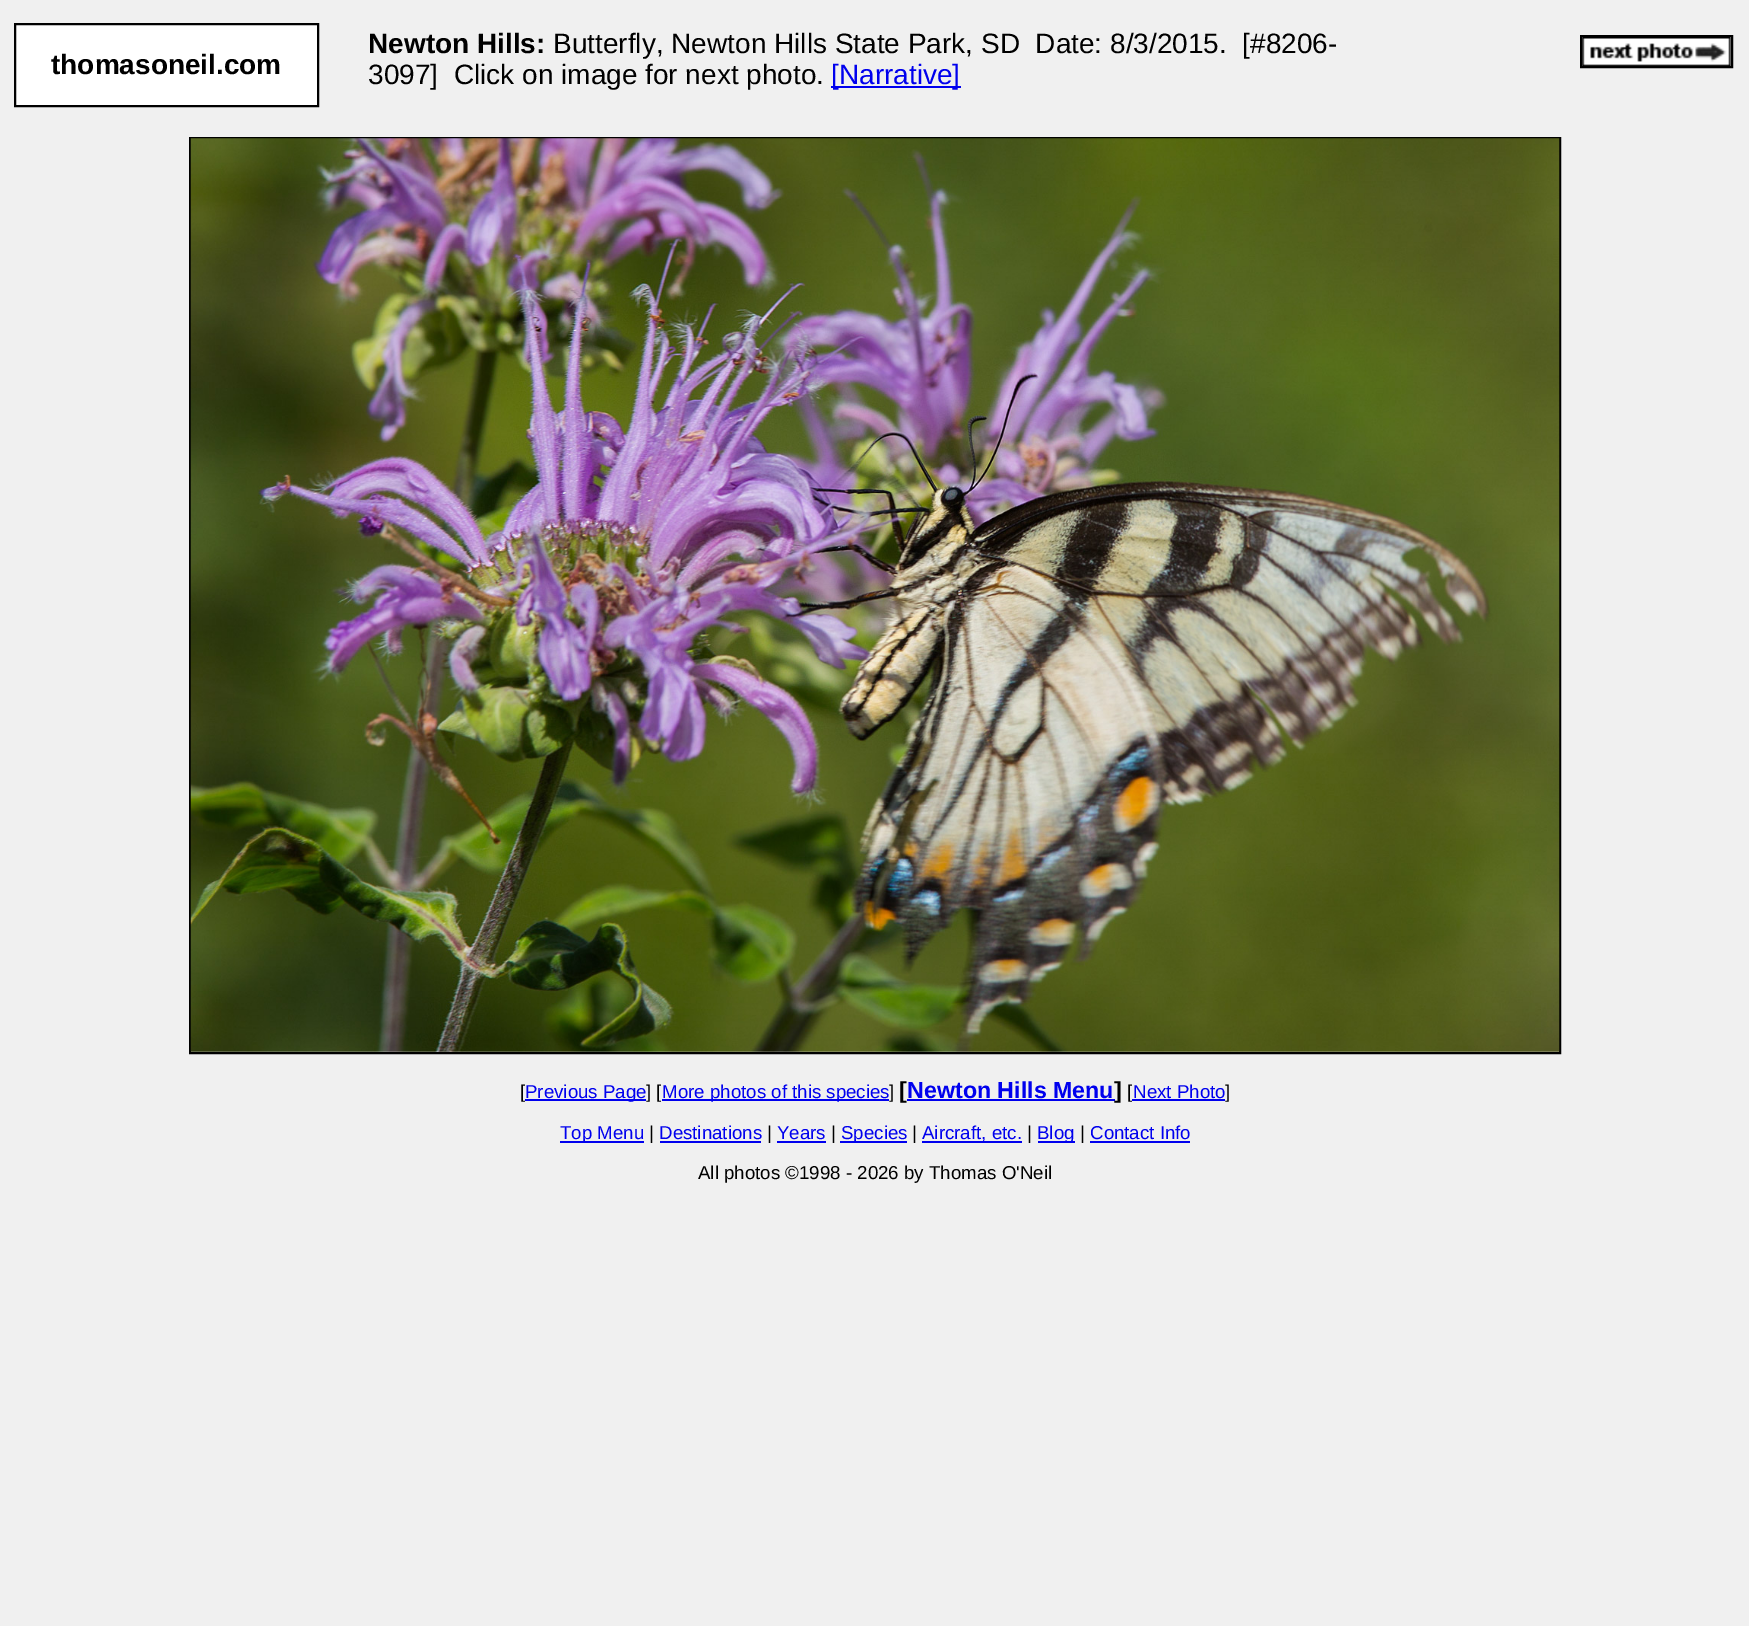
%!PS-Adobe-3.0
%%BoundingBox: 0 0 1749 1626
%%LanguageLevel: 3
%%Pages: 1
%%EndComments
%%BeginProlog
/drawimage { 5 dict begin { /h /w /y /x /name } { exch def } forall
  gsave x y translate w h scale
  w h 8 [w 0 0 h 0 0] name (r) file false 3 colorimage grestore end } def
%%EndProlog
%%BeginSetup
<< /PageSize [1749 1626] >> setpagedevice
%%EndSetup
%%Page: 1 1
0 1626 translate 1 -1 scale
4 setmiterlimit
0.941 setgray
0 0 1749 1626 rectfill
1 setgray
newpath 15 24 moveto 318 24 lineto 318 106 lineto 15 106 lineto closepath gsave fill grestore
0 setgray
2 setlinewidth
stroke
0 0 0.933 setrgbcolor
831 86 130 2 rectfill
0 setgray
1581 36 151 31 rectstroke
(images/1.raw) 1582 37 149 29 drawimage
190 138 1370 915 rectstroke
(images/2.raw) 190 138 1370 914 drawimage
0 0 0.933 setrgbcolor
525 1099 121 2 rectfill
662 1099 227 2 rectfill
907 1099 208 2 rectfill
560 1141 84 2 rectfill
660 1141 101 2 rectfill
777 1141 49 2 rectfill
840 1141 67 2 rectfill
922 1141 100 2 rectfill
1038 1141 37 2 rectfill
1090 1141 100 2 rectfill
/LiberationSans-Bold [28 0 0 -28 0 0] selectfont
0 setgray
51 74 moveto (thomasoneil.com) show
368 53 moveto (Newton Hills:) show
/LiberationSans-Regular [28 0 0 -28 0 0] selectfont
553 53 moveto (Butterfly, Newton Hills State Park, SD  Date: 8/3/2015.  [#8206-) show
368 84 moveto (3097]  Click on image for next photo.) show
0 0 0.933 setrgbcolor
831 84 moveto ([Narrative]) show
/LiberationSans-Regular [18.7 0 0 -18.7 0 0] selectfont
0 setgray
520 1098 moveto ([) show
0 0 0.933 setrgbcolor
525 1098 moveto (Previous Page) show
0 setgray
646 1098 moveto (] [) show
0 0 0.933 setrgbcolor
662 1098 moveto (More photos of this species) show
0 setgray
889 1098 moveto (]) show
/LiberationSans-Bold [23.25 0 0 -23.25 0 0] selectfont
899 1098 moveto ([) show
0 0 0.933 setrgbcolor
907 1098 moveto (Newton Hills Menu) show
0 setgray
1114 1098 moveto (]) show
/LiberationSans-Regular [18.7 0 0 -18.7 0 0] selectfont
1127 1098 moveto ([) show
0 0 0.933 setrgbcolor
1133 1098 moveto (Next Photo) show
1132 1099 93 2 rectfill
0 setgray
1225 1098 moveto (]) show
0 0 0.933 setrgbcolor
560 1139 moveto (Top Menu) show
0 setgray
649 1139 moveto (|) show
0 0 0.933 setrgbcolor
659 1139 moveto (Destinations) show
0 setgray
767 1139 moveto (|) show
0 0 0.933 setrgbcolor
777 1139 moveto (Years) show
0 setgray
831 1139 moveto (|) show
0 0 0.933 setrgbcolor
841 1139 moveto (Species) show
0 setgray
912 1139 moveto (|) show
0 0 0.933 setrgbcolor
922 1139 moveto (Aircraft, etc.) show
0 setgray
1027 1139 moveto (|) show
0 0 0.933 setrgbcolor
1037 1139 moveto (Blog) show
0 setgray
1080 1139 moveto (|) show
0 0 0.933 setrgbcolor
1090 1139 moveto (Contact Info) show
0 setgray
698 1179 moveto (All photos ©1998 - 2026 by Thomas O'Neil) show
showpage
%%EOF
